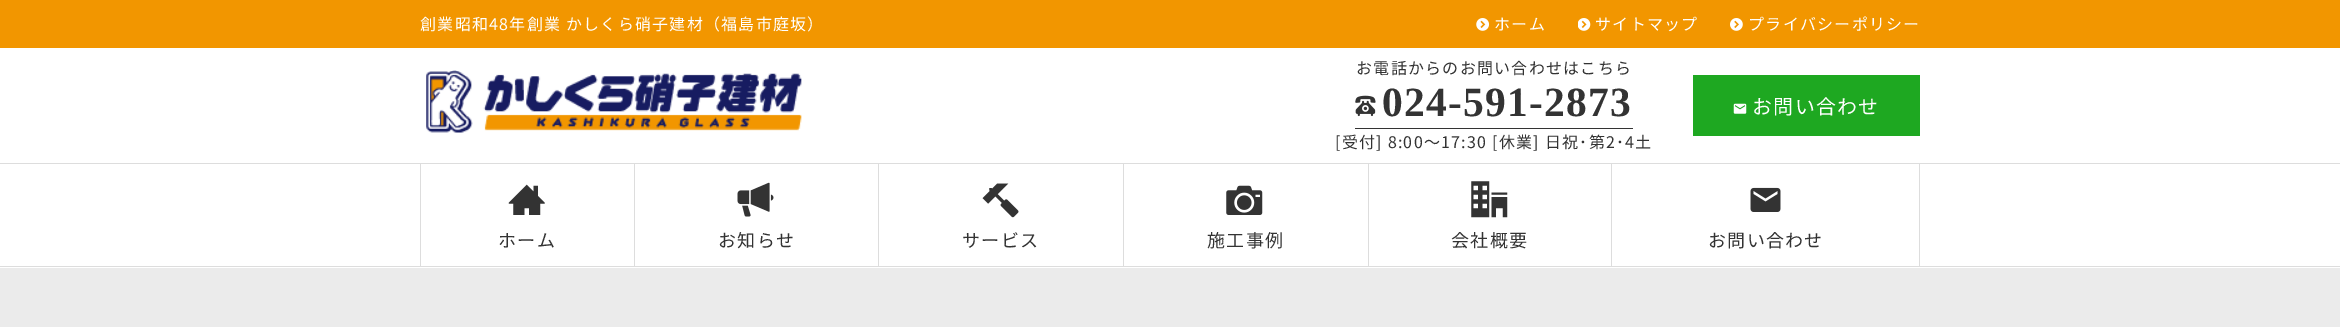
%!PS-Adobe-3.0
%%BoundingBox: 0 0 2340 327
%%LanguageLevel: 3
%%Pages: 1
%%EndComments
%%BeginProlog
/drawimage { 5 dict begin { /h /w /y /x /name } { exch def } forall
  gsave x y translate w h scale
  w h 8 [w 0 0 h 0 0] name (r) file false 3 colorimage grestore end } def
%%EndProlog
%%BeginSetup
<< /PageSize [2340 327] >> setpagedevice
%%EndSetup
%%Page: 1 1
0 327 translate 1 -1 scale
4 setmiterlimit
1 setgray
0 0 2340 327 rectfill
0.949 0.588 0 setrgbcolor
0 0 2340 48 rectfill
(images/1.raw) 1476 18 14 13 drawimage
(images/2.raw) 1578 18 13 13 drawimage
(images/3.raw) 1730 18 13 13 drawimage
(images/4.raw) 426 70 376 63 drawimage
0.2 setgray
1355 128 278 1 rectfill
(images/5.raw) 1355 95 21 22 drawimage
0.118 0.659 0.129 setrgbcolor
1693 75 227 61 rectfill
(images/6.raw) 1733 103 14 11 drawimage
0.867 setgray
0 163 2340 1 rectfill
0 266 2340 1 rectfill
420 164 1 102 rectfill
634 164 1 102 rectfill
(images/7.raw) 508 184 37 31 drawimage
878 164 1 102 rectfill
(images/8.raw) 737 182 37 35 drawimage
1123 164 1 102 rectfill
(images/9.raw) 982 183 37 35 drawimage
1368 164 1 102 rectfill
(images/10.raw) 1226 185 37 30 drawimage
1611 164 1 102 rectfill
(images/11.raw) 1471 181 37 37 drawimage
1919 164 1 102 rectfill
(images/12.raw) 1750 187 31 25 drawimage
0.922 setgray
0 268 2340 59 rectfill
/NotoSansJP-Regular [16 0 0 -16 0 0] selectfont
1 setgray
420 30 moveto 1.25 0 (創業昭和48年創業 かしくら硝子建材（福島市庭坂）) ashow
1494 30 moveto 1.25 0 (ホーム) ashow
1595 30 moveto 1.25 0 (サイトマップ) ashow
1748 30 moveto 1.25 0 (プライバシーポリシー) ashow
0.2 setgray
1356 74 moveto 1.25 0 (お電話からのお問い合わせはこちら) ashow
/LiberationSerif-Bold [41.5 0 0 -41.5 0 0] selectfont
1382 116 moveto 1.25 0 (024-591-2873) ashow
/NotoSansJP-Regular [16 0 0 -16 0 0] selectfont
1335 148 moveto 1.25 0 ([受付] 8:00) ashow
/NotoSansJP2-Regular [16 0 0 -16 0 0] selectfont
1424 148 moveto 1.25 0 (～) ashow
/NotoSansJP-Regular [16 0 0 -16 0 0] selectfont
1441 148 moveto 1.25 0 (17:30 [休業] 日祝) ashow
/NotoSansJP2-Regular [16 0 0 -16 0 0] selectfont
1579 148 moveto 1.25 0 (･) ashow
/NotoSansJP-Regular [16 0 0 -16 0 0] selectfont
1589 148 moveto 1.25 0 (第2) ashow
/NotoSansJP2-Regular [16 0 0 -16 0 0] selectfont
1616 148 moveto 1.25 0 (･) ashow
/NotoSansJP-Regular [16 0 0 -16 0 0] selectfont
1625 148 moveto 1.25 0 (4土) ashow
/NotoSansJP-Regular [20 0 0 -20 0 0] selectfont
1 setgray
1752 114 moveto 1.25 0 (お問い合わせ) ashow
/NotoSansJP-Regular [18 0 0 -18 0 0] selectfont
0.2 setgray
498 247 moveto 1.25 0 (ホーム) ashow
718 247 moveto 1.25 0 (お知らせ) ashow
962 247 moveto 1.25 0 (サービス) ashow
1207 247 moveto 1.25 0 (施工事例) ashow
1451 247 moveto 1.25 0 (会社概要) ashow
1708 247 moveto 1.25 0 (お問い合わせ) ashow
showpage
%%EOF
